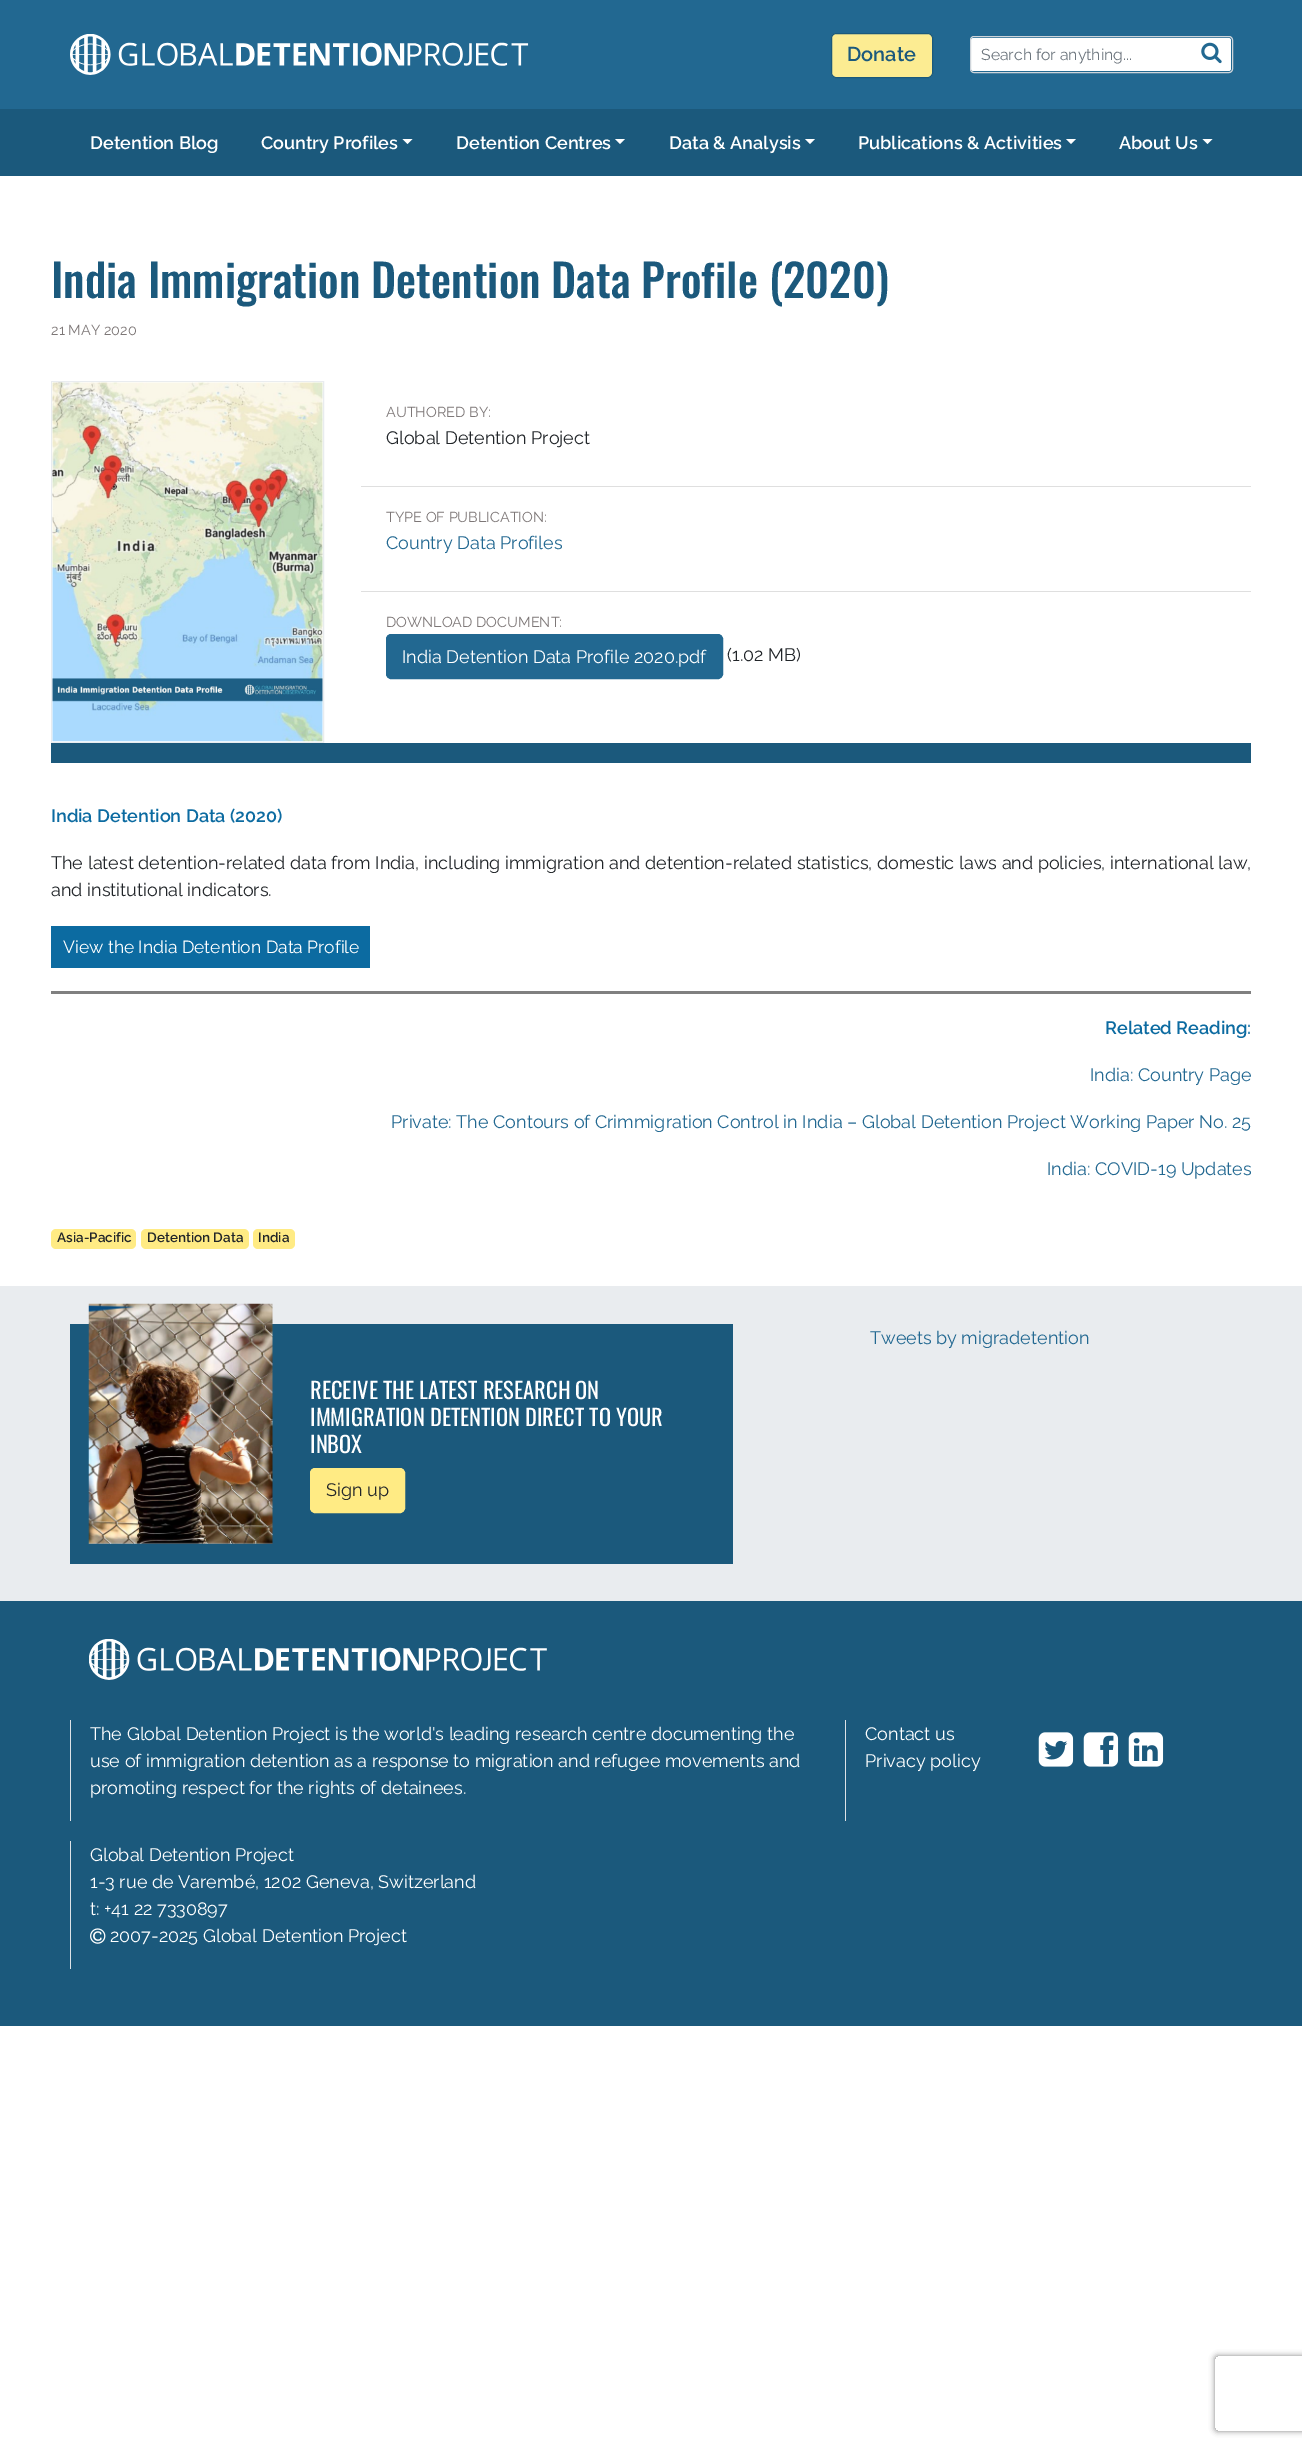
%!PS-Adobe-3.0
%%BoundingBox: 0 0 1302 2448
%%LanguageLevel: 3
%%Pages: 1
%%EndComments
%%BeginProlog
/setalpha { dup .setfillconstantalpha .setstrokeconstantalpha } def
/rrect { 5 dict begin { /r /h /w /y /x } { exch def } forall
  x r add y moveto x w add y 2 copy h add r arct x w add y h add x 1 index r arct
  x y h add x y r arct x y 2 copy exch w add exch r arct closepath end } def
/softshadow { 12 dict begin { /a /b /q /h /w /y /x } { exch def } forall gsave /was 0 def
  9 -2 -9 { dup b mul 4 div /e exch def 1 sub .425 mul 2.718 exch exp 1 add a .99 .min exch div /now exch def
    1 1 now sub 1 was sub div sub setalpha /was now def
    w h .min e 2 mul add 0 gt { x e sub y e sub w e 2 mul add h e 2 mul add
      q e add b .6 mul add w h .min 2 div e add .min 0 .max rrect fill } if } for grestore end } def
/drawimage { 5 dict begin { /h /w /y /x /name } { exch def } forall
  gsave x y translate w h scale
  w h 8 [w 0 0 h 0 0] name (r) file false 3 colorimage grestore end } def
%%EndProlog
%%BeginSetup
<< /PageSize [1302 2448] /PageUsesTransparency true >> setpagedevice
%%EndSetup
%%Page: 1 1
0 .pushpdf14devicefilter
0 2448 translate 1 -1 scale
4 setmiterlimit
1 setgray
0 0 1302 2448 rectfill
0.133 0.408 0.569 setrgbcolor
0 0 1302 109 rectfill
(images/1.raw) 70 34 459 41 drawimage
0.988 0.925 0.573 setrgbcolor
831.5 33.5 101 44 4.5 rrect gsave fill grestore
0.106 0.349 0.486 setrgbcolor
stroke
1 setgray
971 38 260 33 2.5 rrect fill
0.808 0.831 0.855 setrgbcolor
970.5 36.5 262 36 3.5 rrect stroke
(images/2.raw) 1201 42 21 22 drawimage
0.106 0.349 0.486 setrgbcolor
0 109 1302 67 rectfill
1 setgray
newpath 402.5 139 moveto 412.5 139 lineto 407.5 144 lineto closepath fill
newpath 615 139 moveto 625 139 lineto 620 144 lineto closepath fill
newpath 805 139 moveto 815 139 lineto 810 144 lineto closepath fill
newpath 1066 139 moveto 1076 139 lineto 1071 144 lineto closepath fill
newpath 1202.5 139 moveto 1212.5 139 lineto 1207.5 144 lineto closepath fill
0.914 0.925 0.937 setrgbcolor
51.5 381.5 272 361 rectstroke
(images/3.raw) 52 382 271 360 drawimage
0.875 setgray
361 486 890 1 rectfill
361 591 890 1 rectfill
0.133 0.408 0.569 setrgbcolor
386.5 634.5 336 44 4.5 rrect gsave fill grestore
stroke
0.106 0.349 0.486 setrgbcolor
51 743 1200 20 rectfill
0.047 0.42 0.631 setrgbcolor
51 926 319 42 rectfill
0.502 setgray
51 991 1200 3 rectfill
1 0.922 0.518 setrgbcolor
51 1229 85 20 5 rrect fill
141 1229 108 20 5 rrect fill
253 1229 42 20 5 rrect fill
0.914 0.925 0.937 setrgbcolor
0 1286 1302 315 rectfill
0.106 0.349 0.486 setrgbcolor
70 1324 663 240 rectfill
(images/4.raw) 88 1303 185 241 drawimage
1 0.922 0.518 setrgbcolor
310.5 1468.5 94 44 4.5 rrect gsave fill grestore
stroke
0.106 0.349 0.486 setrgbcolor
0 1601 1302 425 rectfill
(images/5.raw) 89 1639 458 41 drawimage
0.871 0.886 0.902 setrgbcolor
70 1720 1 101 rectfill
845 1720 1 101 rectfill
(images/6.raw) 1038 1732 36 35 drawimage
(images/7.raw) 1083 1732 36 35 drawimage
(images/8.raw) 1128 1732 36 35 drawimage
70 1841 1 128 rectfill
(images/9.raw) 90 1928 16 16 drawimage
gsave
newpath 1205 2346 moveto 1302 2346 lineto 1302 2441 lineto 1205 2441 lineto closepath 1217.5 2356 moveto 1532.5 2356 lineto 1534 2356 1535 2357 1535 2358.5 curveto 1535 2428.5 lineto 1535 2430 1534 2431 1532.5 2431 curveto 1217.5 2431 lineto 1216 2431 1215 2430 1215 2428.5 curveto 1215 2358.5 lineto 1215 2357 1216 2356 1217.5 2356 curveto closepath eoclip newpath
0.502 setgray
1215 2356 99 75 2.5 3 1 softshadow
grestore
/Raleway-SemiBold [20 0 0 -20 0 0] selectfont
0.106 0.349 0.486 setrgbcolor
847 61 moveto (Donate) show
/Raleway-Thin [15.75 0 0 -15.75 0 0] selectfont
0.424 0.459 0.49 setrgbcolor
981 60 moveto (Search for anything...) show
/Raleway-SemiBold [18 0 0 -18 0 0] selectfont
1 setgray
90 149 moveto (Detention Blog) show
261 149 moveto (Country Profiles) show
456 149 moveto (Detention Centres) show
669 149 moveto (Data & Analysis) show
858 149 moveto (Publications & Activities) show
1119 149 moveto (About Us) show
/Oswald-Medium [45 0 0 -45 0 0] selectfont
0.106 0.349 0.486 setrgbcolor
51 298 moveto (India Immigration Detention Data Profile \(2020\)) show
/Raleway-Thin [14.4 0 0 -14.4 0 0] selectfont
0.49 0.467 0.467 setrgbcolor
51 335 moveto (21 MAY 2020) show
386 417 moveto (AUTHORED BY:) show
/Raleway-Thin [18 0 0 -18 0 0] selectfont
0.129 0.145 0.161 setrgbcolor
386 444 moveto (Global Detention Project) show
/Raleway-Thin [14.4 0 0 -14.4 0 0] selectfont
0.49 0.467 0.467 setrgbcolor
386 522 moveto (TYPE OF PUBLICATION:) show
/Raleway-Thin [18 0 0 -18 0 0] selectfont
0.133 0.408 0.569 setrgbcolor
386 549 moveto (Country Data Profiles) show
/Raleway-Thin [14.4 0 0 -14.4 0 0] selectfont
0.49 0.467 0.467 setrgbcolor
386 627 moveto (DOWNLOAD DOCUMENT:) show
/Raleway-Thin [18 0 0 -18 0 0] selectfont
1 setgray
402 663 moveto (India Detention Data Profile 2020.pdf) show
0.129 0.145 0.161 setrgbcolor
727 661 moveto (\(1.02 MB\)) show
/Raleway-SemiBold [18 0 0 -18 0 0] selectfont
0.047 0.42 0.631 setrgbcolor
51 822 moveto (India Detention Data \(2020\)) show
/Raleway-Thin [18 0 0 -18 0 0] selectfont
0.129 0.145 0.161 setrgbcolor
51 869 moveto (The latest detention-related data from India, including immigration and detention-related statistics, domestic laws and policies, international law,) show
51 896 moveto (and institutional indicators.) show
/Raleway-Thin [17.5 0 0 -17.5 0 0] selectfont
1 setgray
63 953 moveto (View the India Detention Data Profile) show
/Raleway-SemiBold [18 0 0 -18 0 0] selectfont
0.047 0.42 0.631 setrgbcolor
1105 1034 moveto (Related Reading:) show
/Raleway-Thin [18 0 0 -18 0 0] selectfont
0.133 0.408 0.569 setrgbcolor
1090 1081 moveto (India: Country Page) show
391 1128 moveto (Private: The Contours of Crimmigration Control in India – Global Detention Project Working Paper No. 25) show
1047 1175 moveto (India: COVID-19 Updates) show
/Raleway-SemiBold [13.5 0 0 -13.5 0 0] selectfont
0.129 0.145 0.161 setrgbcolor
57 1242 moveto (Asia-Pacific) show
147 1242 moveto (Detention Data) show
258 1242 moveto (India) show
/Raleway-Thin [18 0 0 -18 0 0] selectfont
0.133 0.408 0.569 setrgbcolor
870 1344 moveto (Tweets by migradetention) show
/Oswald-Regular [22.5 0 0 -22.5 0 0] selectfont
1 setgray
310 1399 moveto (RECEIVE THE LATEST RESEARCH ON) show
310 1426 moveto (IMMIGRATION DETENTION DIRECT TO YOUR) show
310 1453 moveto (INBOX) show
/Raleway-Thin [18 0 0 -18 0 0] selectfont
0.129 0.145 0.161 setrgbcolor
326 1496 moveto (Sign up) show
1 setgray
90 1740 moveto (The Global Detention Project is the world's leading research centre documenting the) show
90 1767 moveto (use of immigration detention as a response to migration and refugee movements and) show
90 1794 moveto (promoting respect for the rights of detainees.) show
865 1740 moveto (Contact us) show
865 1767 moveto (Privacy policy) show
90 1861 moveto (Global Detention Project) show
90 1888 moveto (1-3 rue de Varembé, 1202 Geneva, Switzerland) show
90 1915 moveto (t: +41 22 7330897) show
110 1942 moveto (2007-2025 Global Detention Project) show
.poppdf14devicefilter showpage
%%EOF
